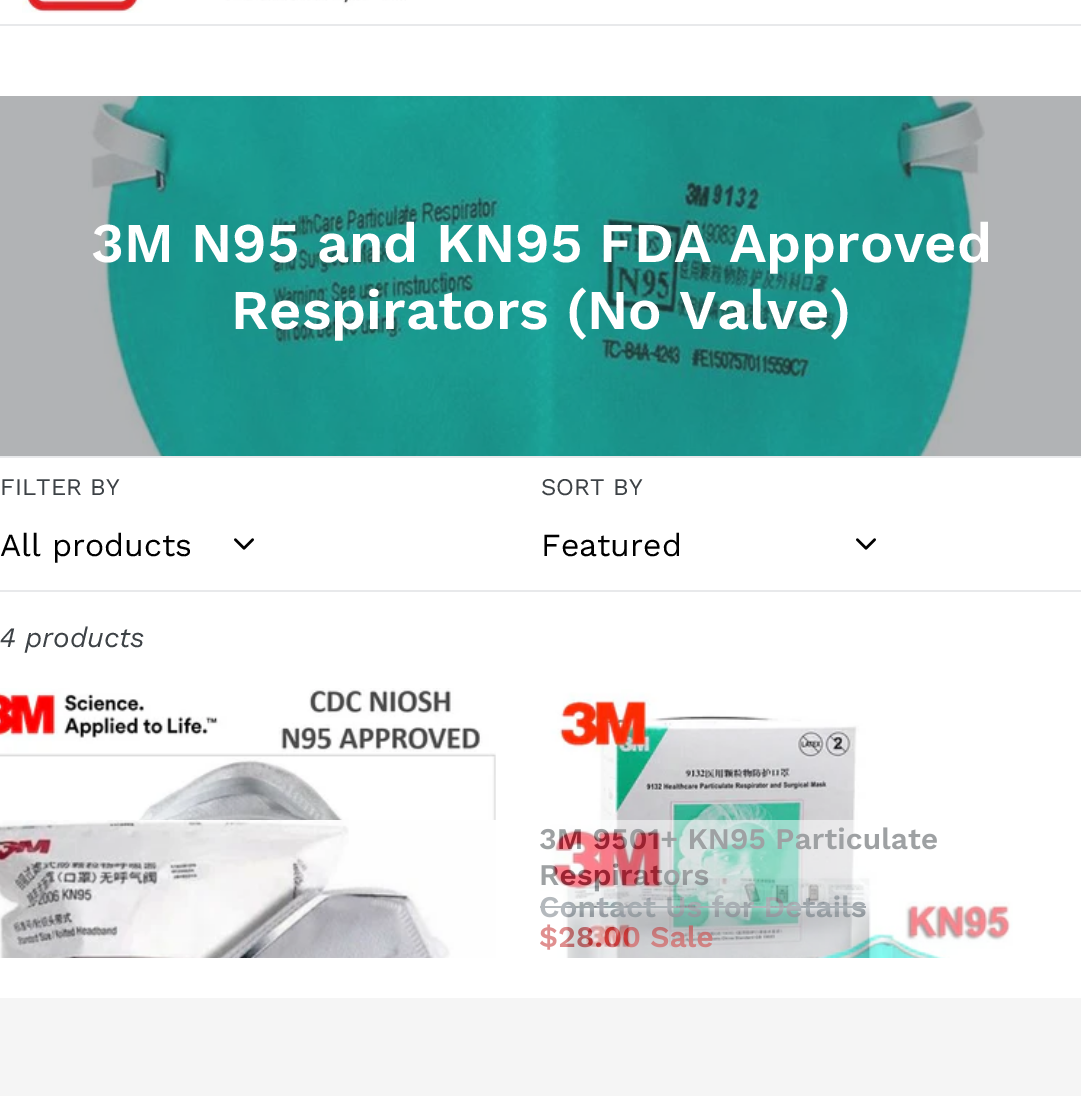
%!PS-Adobe-3.0
%%BoundingBox: 0 0 1081 1096
%%LanguageLevel: 3
%%Pages: 1
%%EndComments
%%BeginProlog
/drawimage { 5 dict begin { /h /w /y /x /name } { exch def } forall
  gsave x y translate w h scale
  w h 8 [w 0 0 h 0 0] name (r) file false 3 colorimage grestore end } def
%%EndProlog
%%BeginSetup
<< /PageSize [1081 1096] >> setpagedevice
%%EndSetup
%%Page: 1 1
0 1096 translate 1 -1 scale
4 setmiterlimit
1 setgray
0 0 1081 1096 rectfill
0.694 0.702 0.71 setrgbcolor
0 96 1081 360 rectfill
0.91 0.914 0.922 setrgbcolor
0 24 1081 2 rectfill
(images/1.raw) 22 0 384 13 drawimage
(images/2.raw) 88 96 897 360 drawimage
0 456 1081 2 rectfill
(images/3.raw) 234 538 20 12 drawimage
(images/3.raw) 856 538 20 12 drawimage
0 590 1081 2 rectfill
(images/4.raw) 0 688 496 132 drawimage
(images/5.raw) 540 689 410 269 drawimage
(images/6.raw) 0 820 496 138 drawimage
0.412 0.447 0.482 setrgbcolor
540 906 326 2 rectfill
0.961 setgray
0 998 1081 98 rectfill
/WorkSans-SemiBold [56 0 0 -56 0 0] selectfont
1 setgray
91 262 moveto (3M N95 and KN95 FDA Approved) show
231 329 moveto (Respirators \(No Valve\)) show
/WorkSans-Regular [24 0 0 -24 0 0] selectfont
0.239 0.259 0.275 setrgbcolor
0 495 moveto (FILTER BY) show
/WorkSans-Regular [32 0 0 -32 0 0] selectfont
0 setgray
0 556 moveto (All products) show
/WorkSans-Regular [24 0 0 -24 0 0] selectfont
0.239 0.259 0.275 setrgbcolor
541 495 moveto (SORT BY) show
/WorkSans-Regular [32 0 0 -32 0 0] selectfont
0 setgray
541 556 moveto (Featured) show
/WorkSans-Italic [28 0 0 -28 0 0] selectfont
0.239 0.259 0.275 setrgbcolor
0 647 moveto (4 products) show
/WorkSans-SemiBold [30 0 0 -30 0 0] selectfont
539 849 moveto (3M 9501+ KN95 Particulate) show
539 885 moveto (Respirators) show
0.412 0.447 0.482 setrgbcolor
539 917 moveto (Contact Us for Details) show
0.753 0.122 0.122 setrgbcolor
539 947 moveto ($28.00 Sale) show
(images/7.raw) 540 820 473 138 drawimage
showpage
%%EOF
